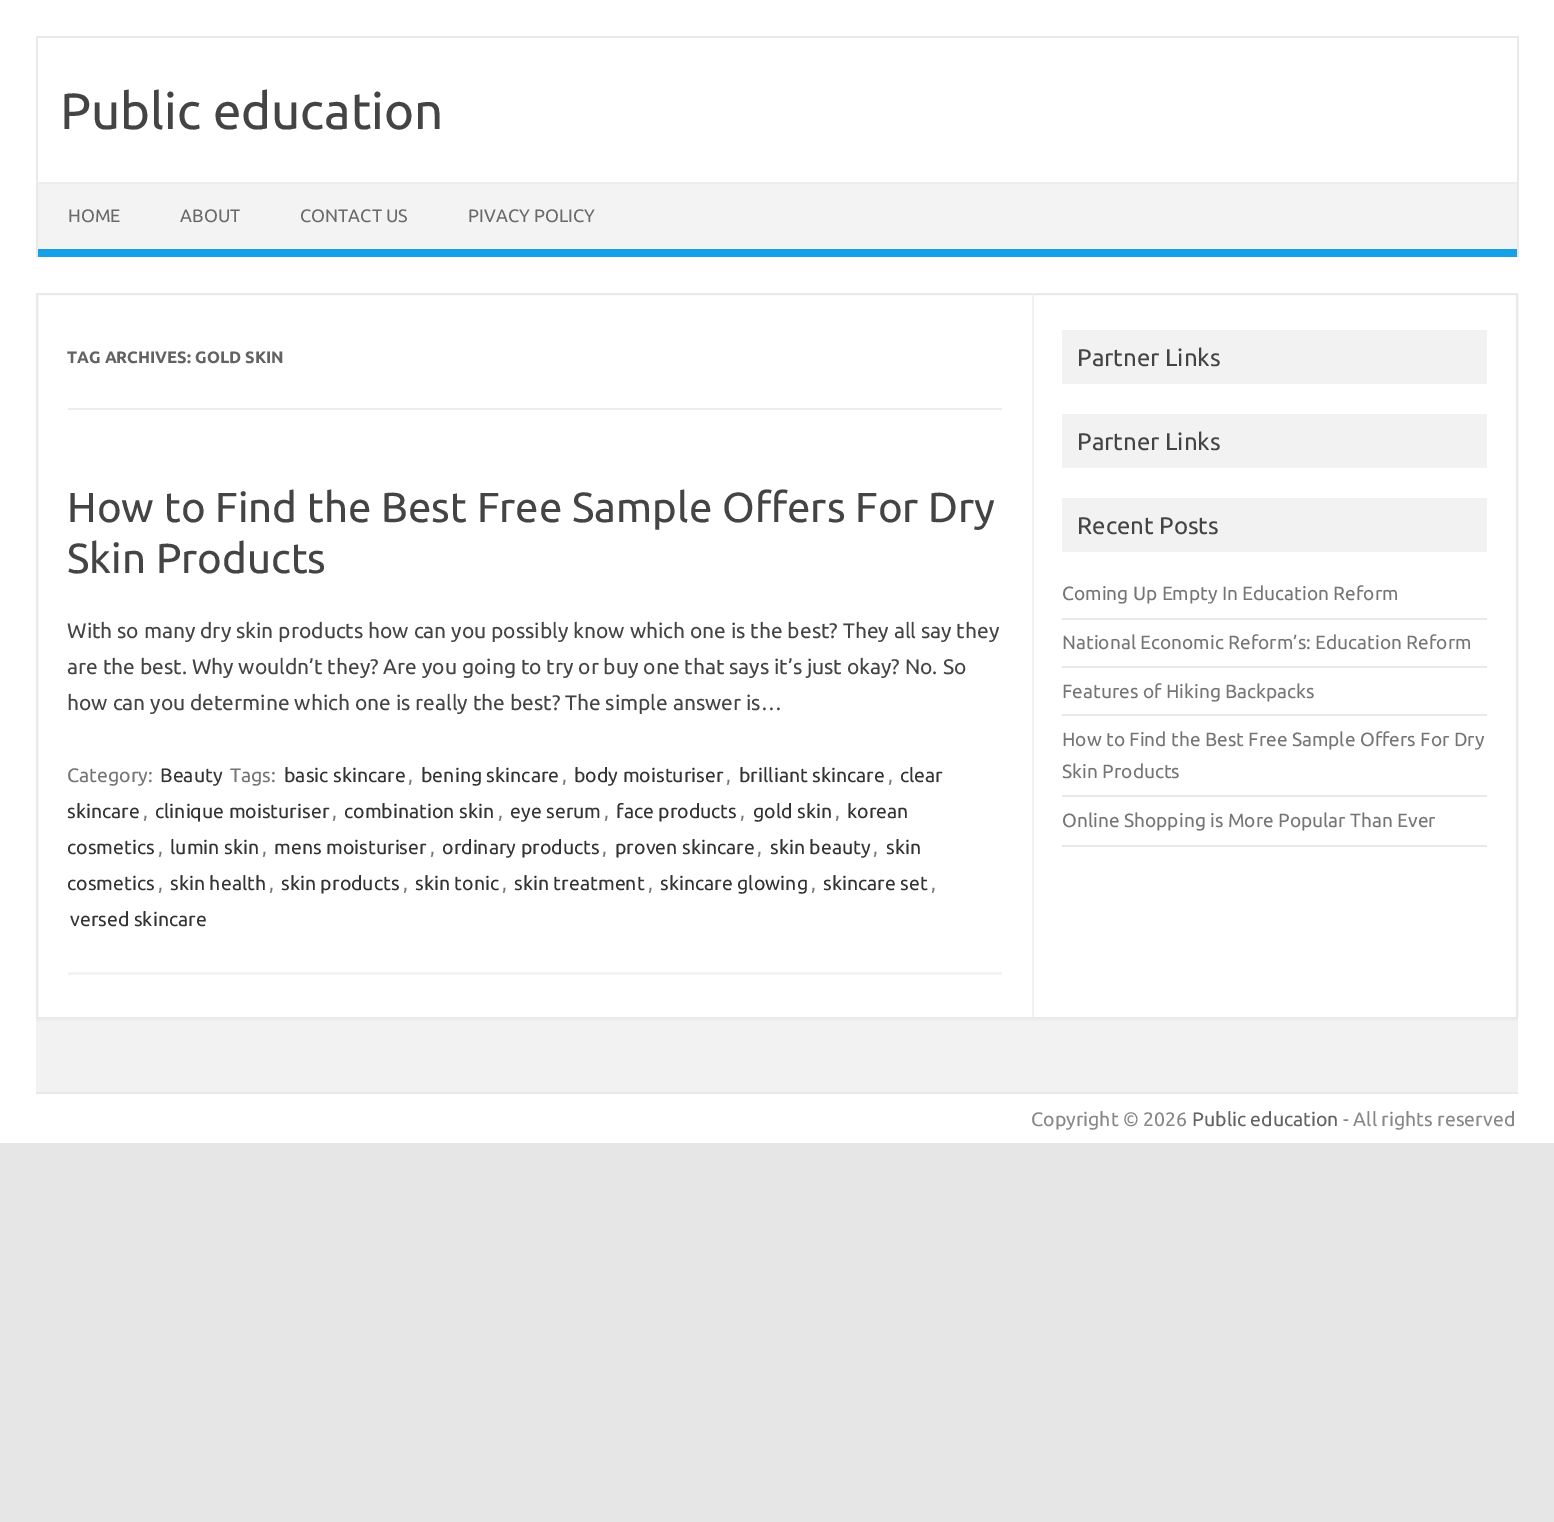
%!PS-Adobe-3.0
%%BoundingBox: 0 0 1554 1522
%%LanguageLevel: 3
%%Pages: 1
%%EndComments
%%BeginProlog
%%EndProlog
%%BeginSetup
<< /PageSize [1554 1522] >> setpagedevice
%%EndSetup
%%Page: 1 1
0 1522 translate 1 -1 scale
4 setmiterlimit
0.902 setgray
0 0 1554 1522 rectfill
1 setgray
0 0 1554 1143 rectfill
0.914 setgray
36 36 1482 2 rectfill
1517 36 2 221 rectfill
36 36 2 221 rectfill
0.953 setgray
38 184 1479 65 rectfill
0.929 setgray
38 182 1479 2 rectfill
0.086 0.631 0.906 setrgbcolor
38 249 1479 8 rectfill
0.914 setgray
2 setlinewidth
37 294 1480 724 rectstroke
0.945 setgray
1032 294 2 723 rectfill
0.929 setgray
68 408 934 2 rectfill
0.953 setgray
68 972 934 3 rectfill
0.949 setgray
1062 330 425 54 rectfill
1062 414 425 54 rectfill
1062 498 425 54 rectfill
0.914 setgray
1062 618 425 2 rectfill
1062 666 425 2 rectfill
1062 714 425 2 rectfill
1062 795 425 2 rectfill
1062 845 425 2 rectfill
0.949 setgray
36 1021 1482 71 rectfill
0.929 setgray
36 1019 1482 2 rectfill
0.914 setgray
36 1092 1482 2 rectfill
/Ubuntu-Regular [51 0 0 -51 0 0] selectfont
0.267 setgray
60 129 moveto (Public education) show
/Ubuntu-Regular [18 0 0 -18 0 0] selectfont
0.416 setgray
68 222 moveto (HOME) show
180 222 moveto (ABOUT) show
300 222 moveto (CONTACT US) show
468 222 moveto (PIVACY POLICY) show
/Ubuntu-Bold [16.5 0 0 -16.5 0 0] selectfont
0.388 setgray
67 363 moveto (TAG ARCHIVES: GOLD SKIN) show
/Ubuntu-Regular [42 0 0 -42 0 0] selectfont
0.267 setgray
67 522 moveto (How to Find the Best Free Sample Offers For Dry) show
67 573 moveto (Skin Products) show
/Ubuntu-Regular [21 0 0 -21 0 0] selectfont
67 638 moveto (With so many dry skin products how can you possibly know which one is the best? They all say they) show
67 674 moveto (are the best. Why wouldn’t they? Are you going to try or buy one that says it’s just okay? No. So) show
67 710 moveto (how can you determine which one is really the best? The simple answer is…) show
/Ubuntu-Regular [19.5 0 0 -19.5 0 0] selectfont
0.459 setgray
67 782 moveto (Category:) show
0.2 setgray
160 782 moveto (Beauty) show
0.459 setgray
230 782 moveto (Tags:) show
0.2 setgray
284 782 moveto (basic skincare) show
0.459 setgray
408 782 moveto (,) show
0.2 setgray
421 782 moveto (bening skincare) show
0.459 setgray
562 782 moveto (,) show
0.2 setgray
574 782 moveto (body moisturiser) show
0.459 setgray
726 782 moveto (,) show
0.2 setgray
739 782 moveto (brilliant skincare) show
0.459 setgray
888 782 moveto (,) show
0.2 setgray
900 782 moveto (clear) show
67 818 moveto (skincare) show
0.459 setgray
143 818 moveto (,) show
0.2 setgray
155 818 moveto (clinique moisturiser) show
0.459 setgray
332 818 moveto (,) show
0.2 setgray
344 818 moveto (combination skin) show
0.459 setgray
498 818 moveto (,) show
0.2 setgray
510 818 moveto (eye serum) show
0.459 setgray
604 818 moveto (,) show
0.2 setgray
616 818 moveto (face products) show
0.459 setgray
740 818 moveto (,) show
0.2 setgray
753 818 moveto (gold skin) show
0.459 setgray
835 818 moveto (,) show
0.2 setgray
847 818 moveto (korean) show
67 854 moveto (cosmetics) show
0.459 setgray
158 854 moveto (,) show
0.2 setgray
170 854 moveto (lumin skin) show
0.459 setgray
262 854 moveto (,) show
0.2 setgray
274 854 moveto (mens moisturiser) show
0.459 setgray
430 854 moveto (,) show
0.2 setgray
442 854 moveto (ordinary products) show
0.459 setgray
602 854 moveto (,) show
0.2 setgray
615 854 moveto (proven skincare) show
0.459 setgray
757 854 moveto (,) show
0.2 setgray
770 854 moveto (skin beauty) show
0.459 setgray
873 854 moveto (,) show
0.2 setgray
886 854 moveto (skin) show
67 890 moveto (cosmetics) show
0.459 setgray
158 890 moveto (,) show
0.2 setgray
170 890 moveto (skin health) show
0.459 setgray
269 890 moveto (,) show
0.2 setgray
281 890 moveto (skin products) show
0.459 setgray
403 890 moveto (,) show
0.2 setgray
415 890 moveto (skin tonic) show
0.459 setgray
502 890 moveto (,) show
0.2 setgray
514 890 moveto (skin treatment) show
0.459 setgray
648 890 moveto (,) show
0.2 setgray
660 890 moveto (skincare glowing) show
0.459 setgray
811 890 moveto (,) show
0.2 setgray
823 890 moveto (skincare set) show
0.459 setgray
931 890 moveto (,) show
0.2 setgray
70 926 moveto (versed skincare) show
/Ubuntu-Regular [24 0 0 -24 0 0] selectfont
0.267 setgray
1077 366 moveto (Partner Links) show
1077 450 moveto (Partner Links) show
1077 534 moveto (Recent Posts) show
/Ubuntu-Regular [19.1 0 0 -19.1 0 0] selectfont
0.459 setgray
1062 600 moveto (Coming Up Empty In Education Reform) show
1062 649 moveto (National Economic Reform’s: Education Reform) show
1062 698 moveto (Features of Hiking Backpacks) show
1062 746 moveto (How to Find the Best Free Sample Offers For Dry) show
1062 778 moveto (Skin Products) show
1062 827 moveto (Online Shopping is More Popular Than Ever) show
/Ubuntu-Regular [19.5 0 0 -19.5 0 0] selectfont
0.533 setgray
1031 1126 moveto (Copyright © 2026) show
0.388 setgray
1192 1126 moveto (Public education) show
0.533 setgray
1343 1126 moveto (- All rights reserved) show
showpage
%%EOF
